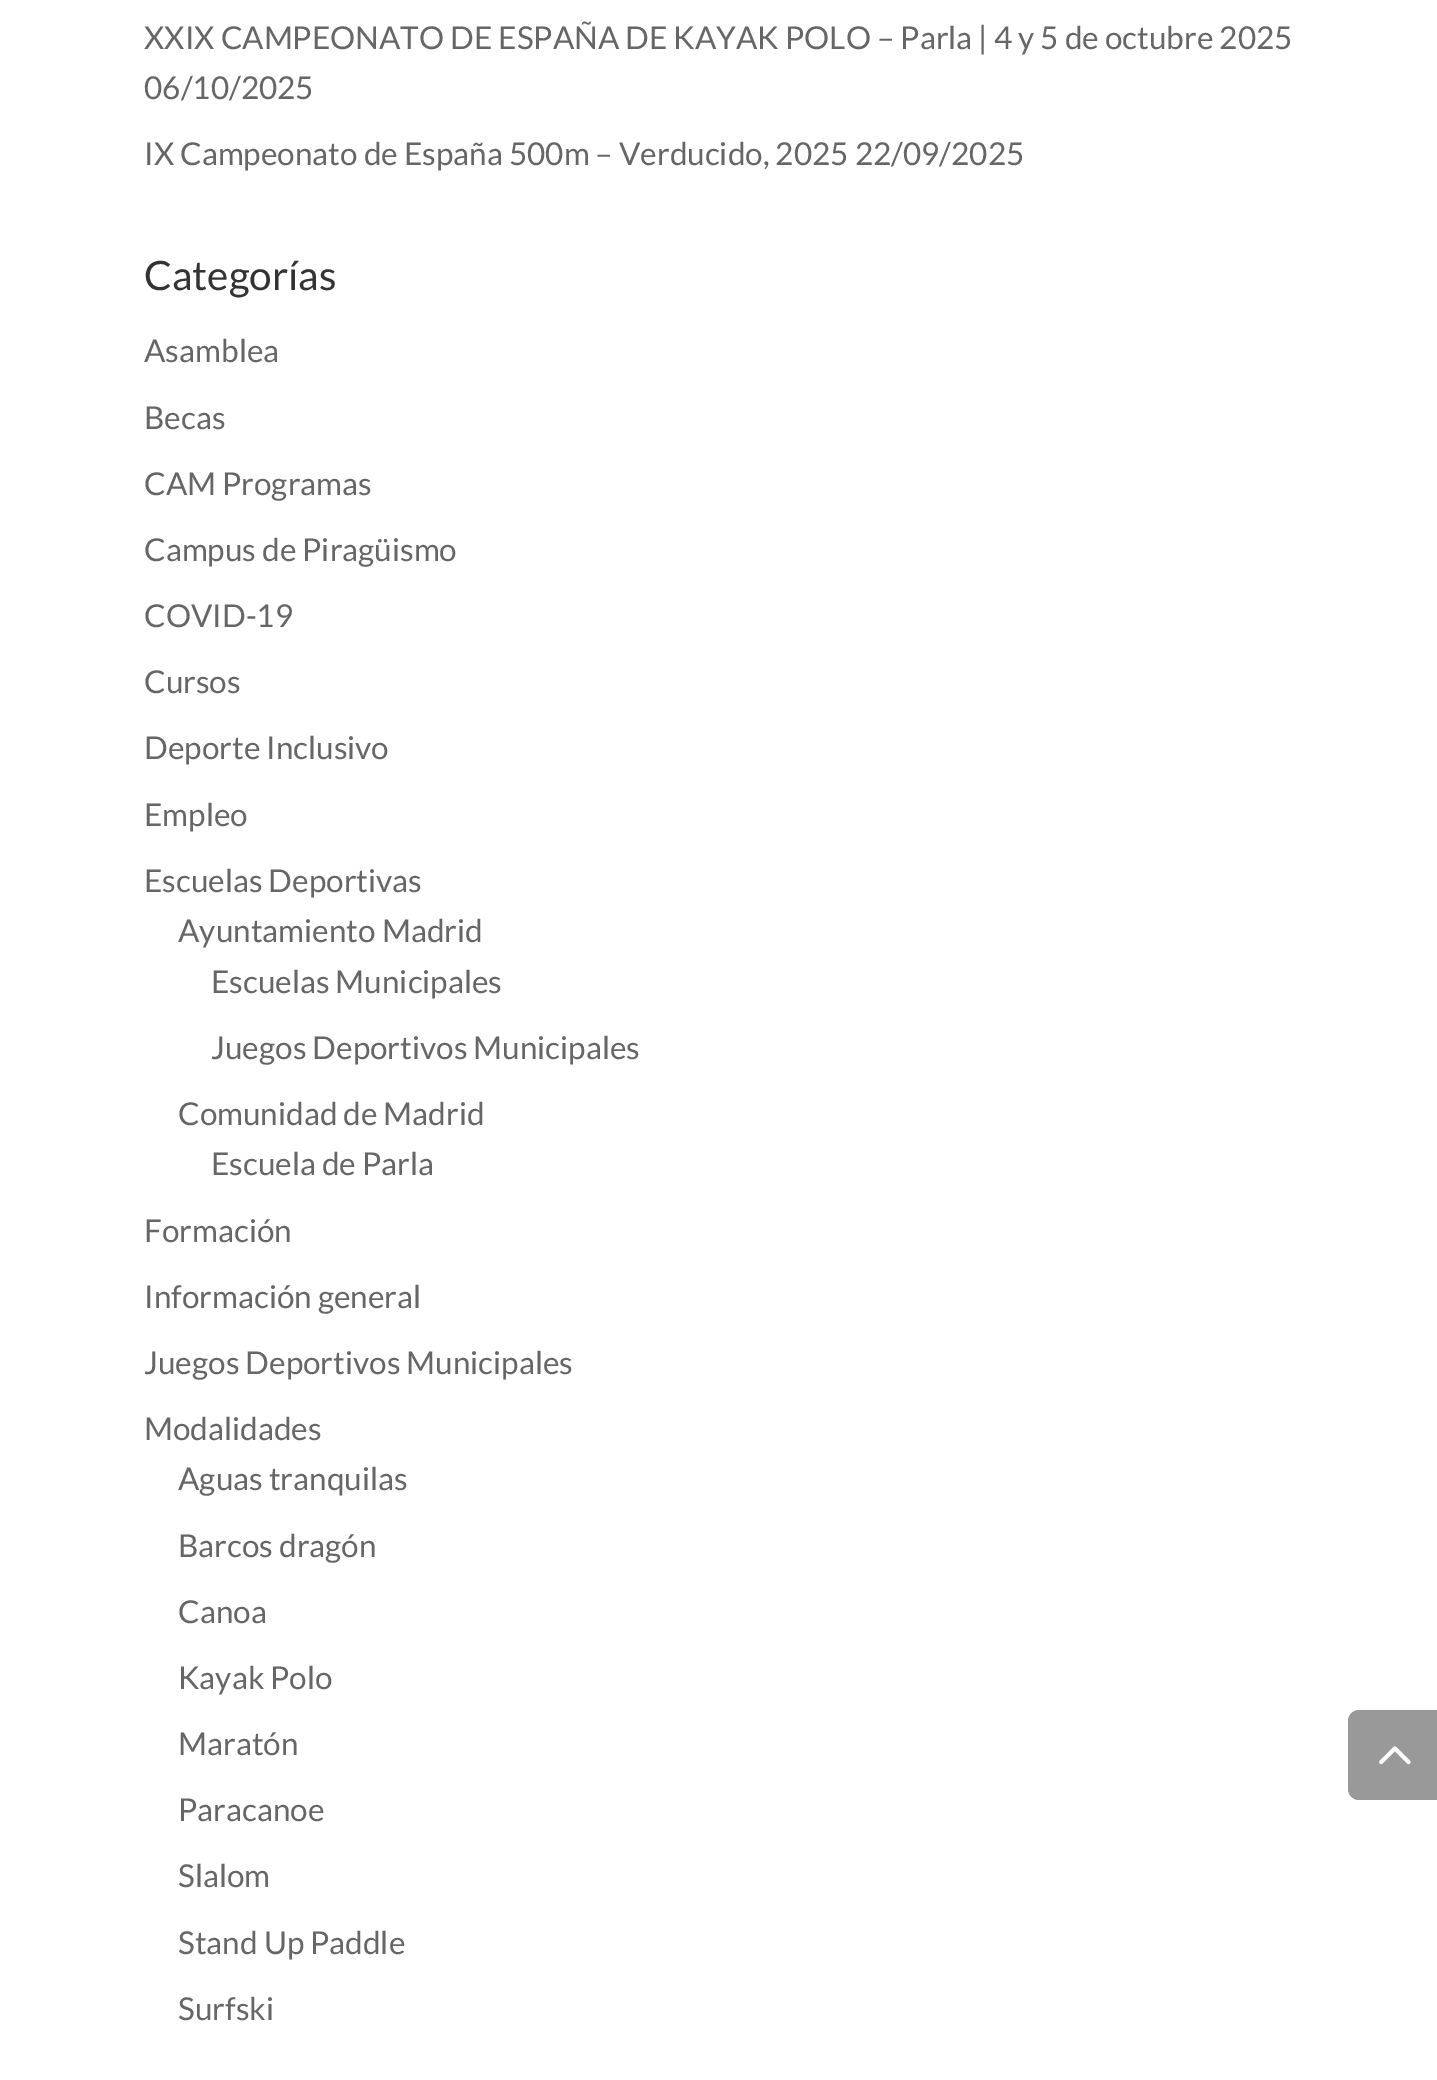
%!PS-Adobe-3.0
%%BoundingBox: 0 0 1437 2080
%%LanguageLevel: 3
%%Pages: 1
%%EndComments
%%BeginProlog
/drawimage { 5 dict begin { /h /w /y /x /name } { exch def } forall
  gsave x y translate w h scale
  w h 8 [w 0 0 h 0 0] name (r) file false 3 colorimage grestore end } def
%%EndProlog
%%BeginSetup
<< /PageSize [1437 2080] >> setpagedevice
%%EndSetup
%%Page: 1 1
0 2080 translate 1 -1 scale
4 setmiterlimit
1 setgray
0 0 1437 2080 rectfill
0.6 setgray
newpath 1359 1710 moveto 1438 1710 lineto 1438 1800 lineto 1359 1800 lineto 1353 1800 1348 1795 1348 1789 curveto 1348 1721 lineto 1348 1715 1353 1710 1359 1710 curveto closepath fill
(images/1.raw) 1379 1746 32 19 drawimage
/Lato-Regular [31.5 0 0 -31.5 0 0] selectfont
0.4 setgray
144 49 moveto (XXIX CAMPEONATO DE ESPAÑA DE KAYAK POLO – Parla | 4 y 5 de octubre 2025) show
144 99 moveto (06/10/2025) show
144 165 moveto (IX Campeonato de España 500m – Verducido, 2025 22/09/2025) show
/Lato-Regular [40.5 0 0 -40.5 0 0] selectfont
0.2 setgray
144 290 moveto (Categorías) show
/Lato-Regular [31.5 0 0 -31.5 0 0] selectfont
0.4 setgray
144 362 moveto (Asamblea) show
144 429 moveto (Becas) show
144 495 moveto (CAM Programas) show
144 561 moveto (Campus de Piragüismo) show
144 627 moveto (COVID-19) show
144 693 moveto (Cursos) show
144 759 moveto (Deporte Inclusivo) show
144 826 moveto (Empleo) show
144 892 moveto (Escuelas Deportivas) show
178 942 moveto (Ayuntamiento Madrid) show
211 993 moveto (Escuelas Municipales) show
211 1059 moveto (Juegos Deportivos Municipales) show
178 1125 moveto (Comunidad de Madrid) show
211 1175 moveto (Escuela de Parla) show
144 1242 moveto (Formación) show
144 1308 moveto (Información general) show
144 1374 moveto (Juegos Deportivos Municipales) show
144 1440 moveto (Modalidades) show
178 1490 moveto (Aguas tranquilas) show
178 1557 moveto (Barcos dragón) show
178 1623 moveto (Canoa) show
178 1689 moveto (Kayak Polo) show
178 1755 moveto (Maratón) show
178 1821 moveto (Paracanoe) show
178 1887 moveto (Slalom) show
178 1954 moveto (Stand Up Paddle) show
178 2020 moveto (Surfski) show
showpage
%%EOF
